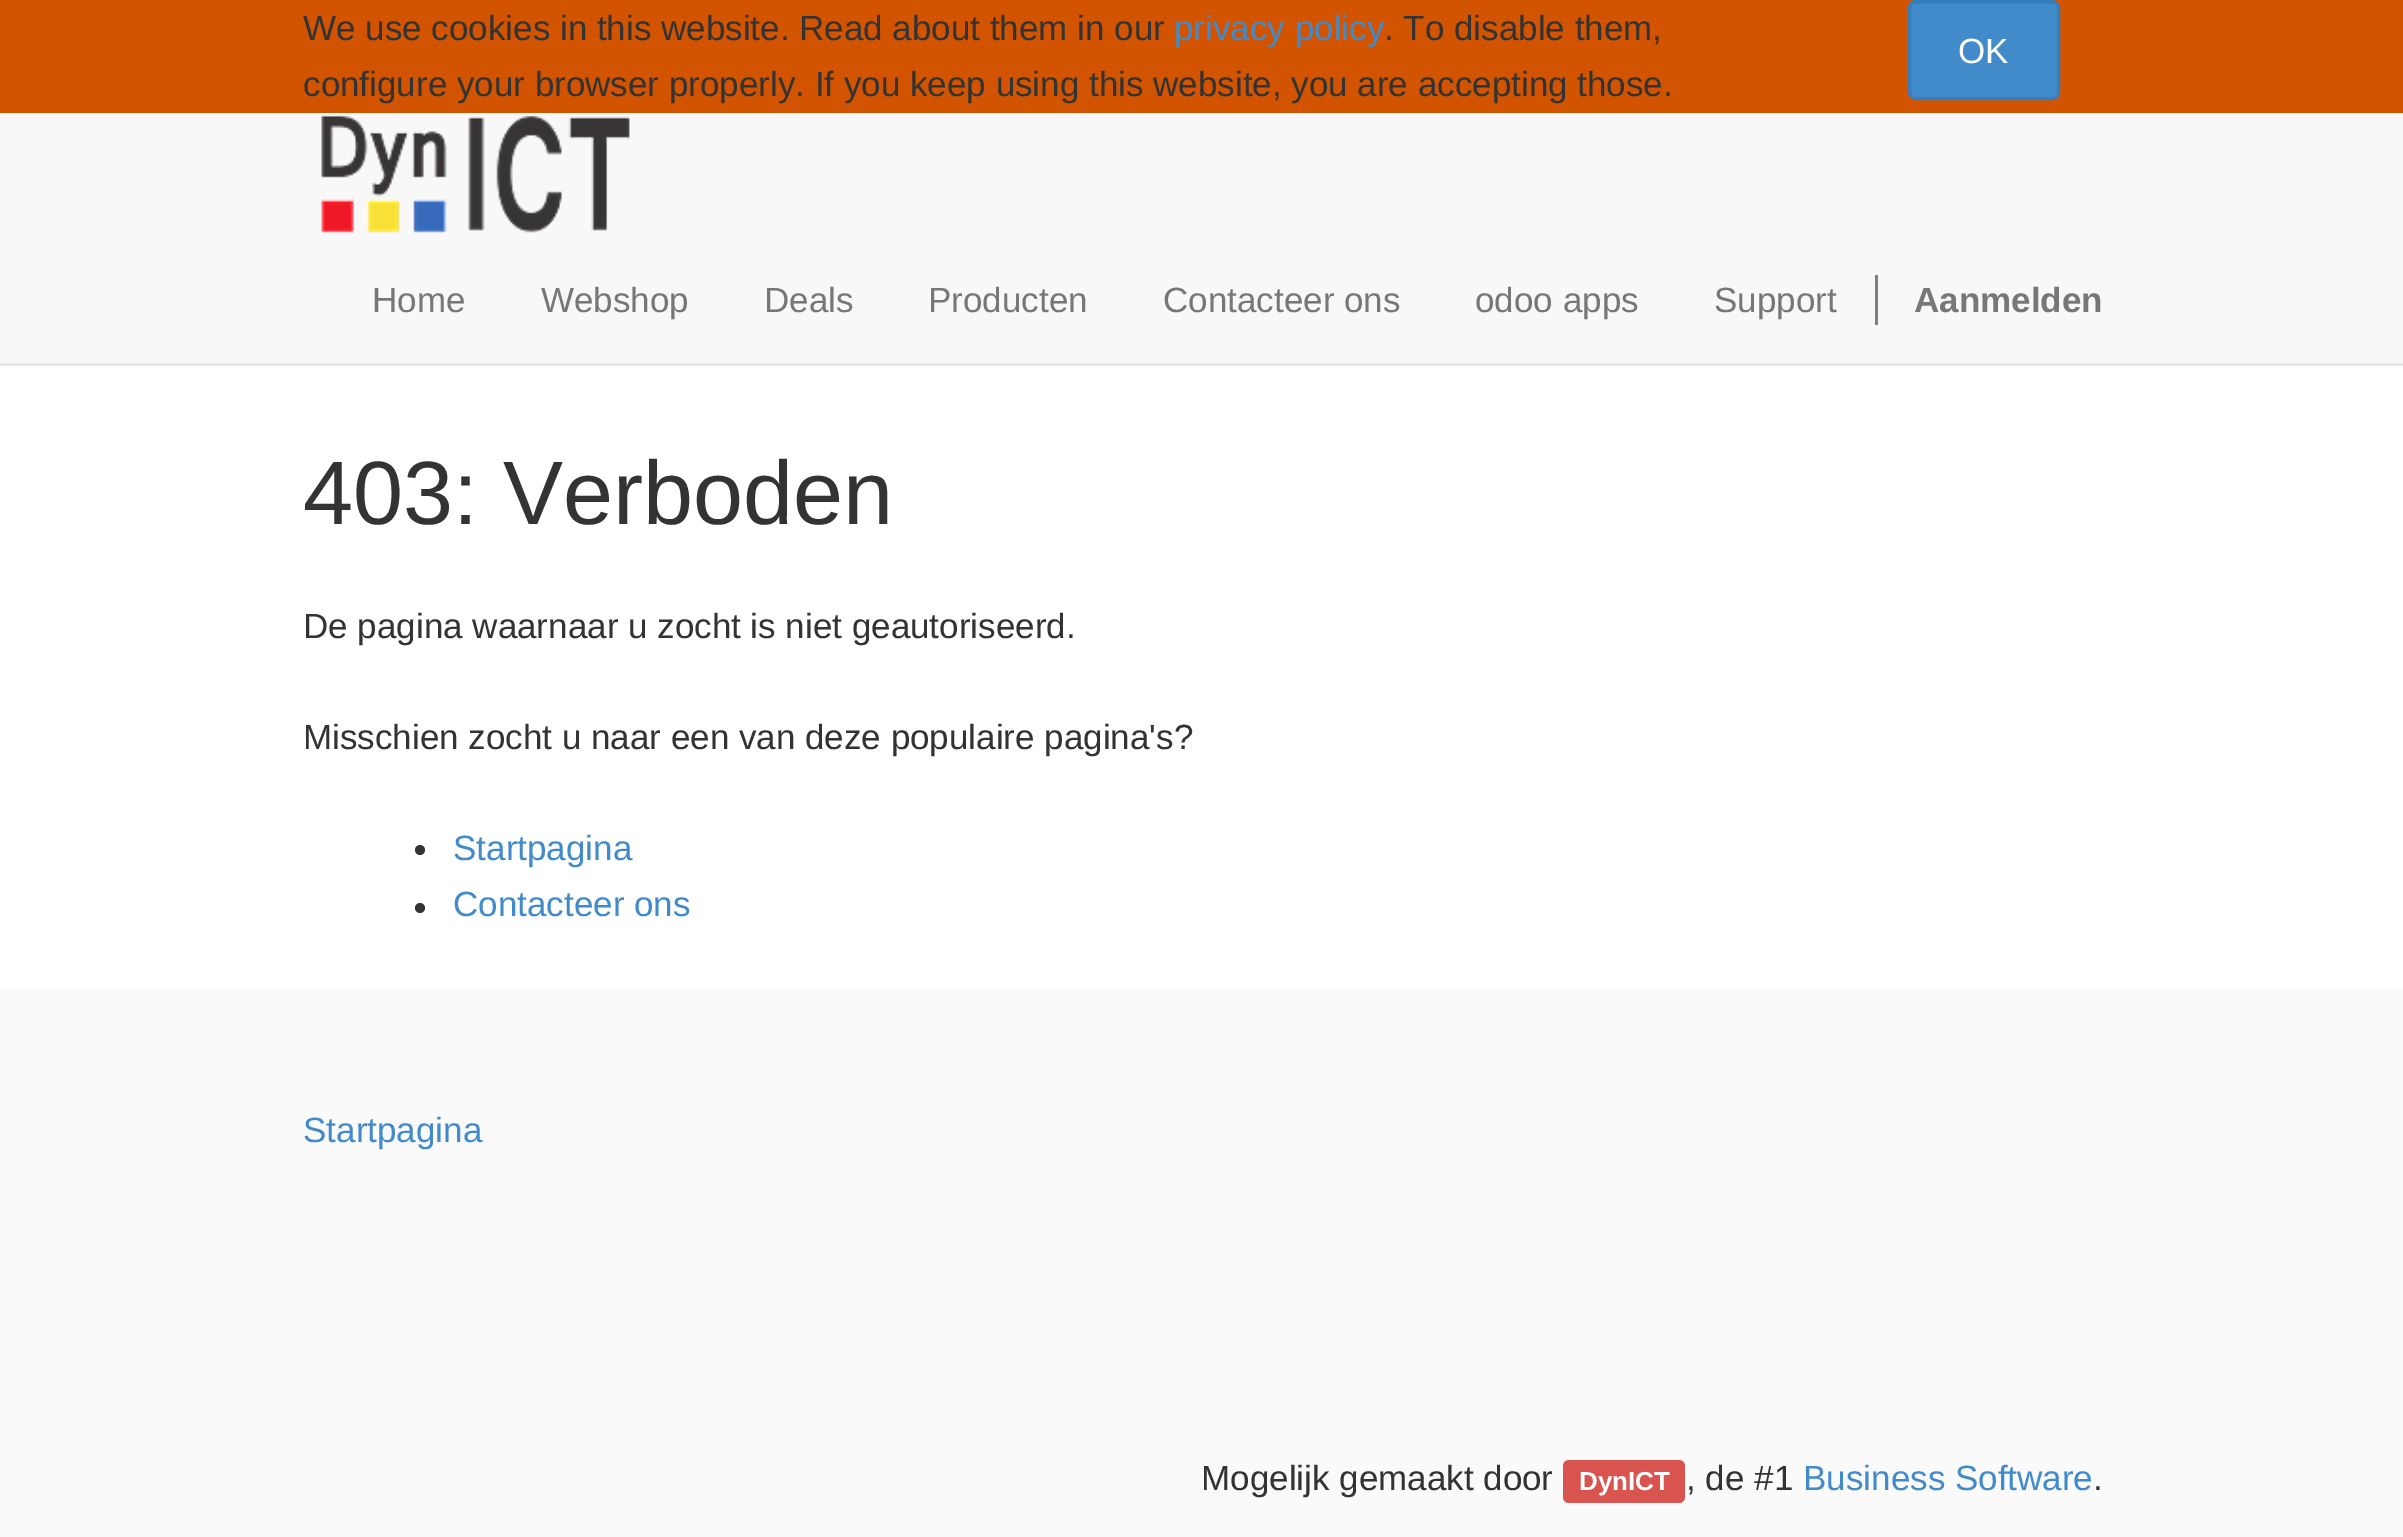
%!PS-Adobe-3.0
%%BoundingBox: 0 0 2403 1537
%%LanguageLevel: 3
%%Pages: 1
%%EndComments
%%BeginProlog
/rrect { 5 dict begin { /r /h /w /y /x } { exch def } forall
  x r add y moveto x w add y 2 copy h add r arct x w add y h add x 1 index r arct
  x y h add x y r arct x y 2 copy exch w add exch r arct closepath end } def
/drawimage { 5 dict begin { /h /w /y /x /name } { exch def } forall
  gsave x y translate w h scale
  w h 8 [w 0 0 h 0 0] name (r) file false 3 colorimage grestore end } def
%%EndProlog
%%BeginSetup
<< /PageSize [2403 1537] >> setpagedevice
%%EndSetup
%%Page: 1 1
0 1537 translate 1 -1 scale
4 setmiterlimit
1 setgray
0 0 2403 1537 rectfill
0.827 0.329 0 setrgbcolor
0 0 2403 113 rectfill
0.259 0.545 0.792 setrgbcolor
1909.5 1.5 149 97 6.5 rrect gsave fill grestore
0.208 0.494 0.741 setrgbcolor
3 setlinewidth
stroke
0.973 setgray
0 113 2403 250 rectfill
0.906 setgray
0 363 2403 3 rectfill
(images/1.raw) 321 115 309 118 drawimage
0.502 setgray
1875 275 3 50 rectfill
0.2 setgray
newpath 420 850 5 0 360 arc closepath fill
newpath 420 908 5 0 360 arc closepath fill
0.98 setgray
0 988 2403 549 rectfill
0.851 0.325 0.31 setrgbcolor
1563 1460 122 43 6 rrect fill
/LiberationSans-Regular [35 0 0 -35 0 0] selectfont
0.2 setgray
303 40 moveto (We use cookies in this website. Read about them in our) show
0.259 0.545 0.792 setrgbcolor
1174 40 moveto (privacy policy) show
0.2 setgray
1384 40 moveto (. To disable them,) show
303 96 moveto (configure your browser properly. If you keep using this website, you are accepting those.) show
1 setgray
1958 63 moveto (OK) show
0.467 setgray
372 312 moveto (Home) show
541 312 moveto (Webshop) show
764 312 moveto (Deals) show
928 312 moveto (Producten) show
1163 312 moveto (Contacteer ons) show
1475 312 moveto (odoo apps) show
1714 312 moveto (Support) show
/LiberationSans-Bold [35 0 0 -35 0 0] selectfont
1914 312 moveto (Aanmelden) show
/LiberationSans-Regular [90 0 0 -90 0 0] selectfont
0.2 setgray
303 524 moveto (403: Verboden) show
/LiberationSans-Regular [35 0 0 -35 0 0] selectfont
303 638 moveto (De pagina waarnaar u zocht is niet geautoriseerd.) show
303 749 moveto (Misschien zocht u naar een van deze populaire pagina's?) show
0.259 0.545 0.792 setrgbcolor
453 860 moveto (Startpagina) show
453 916 moveto (Contacteer ons) show
303 1142 moveto (Startpagina) show
0.2 setgray
1201 1490 moveto (Mogelijk gemaakt door) show
/LiberationSans-Bold [26 0 0 -26 0 0] selectfont
1 setgray
1579 1490 moveto (DynICT) show
/LiberationSans-Regular [35 0 0 -35 0 0] selectfont
0.2 setgray
1686 1490 moveto (, de #1) show
0.259 0.545 0.792 setrgbcolor
1803 1490 moveto (Business Software) show
0.2 setgray
2093 1490 moveto (.) show
showpage
%%EOF
